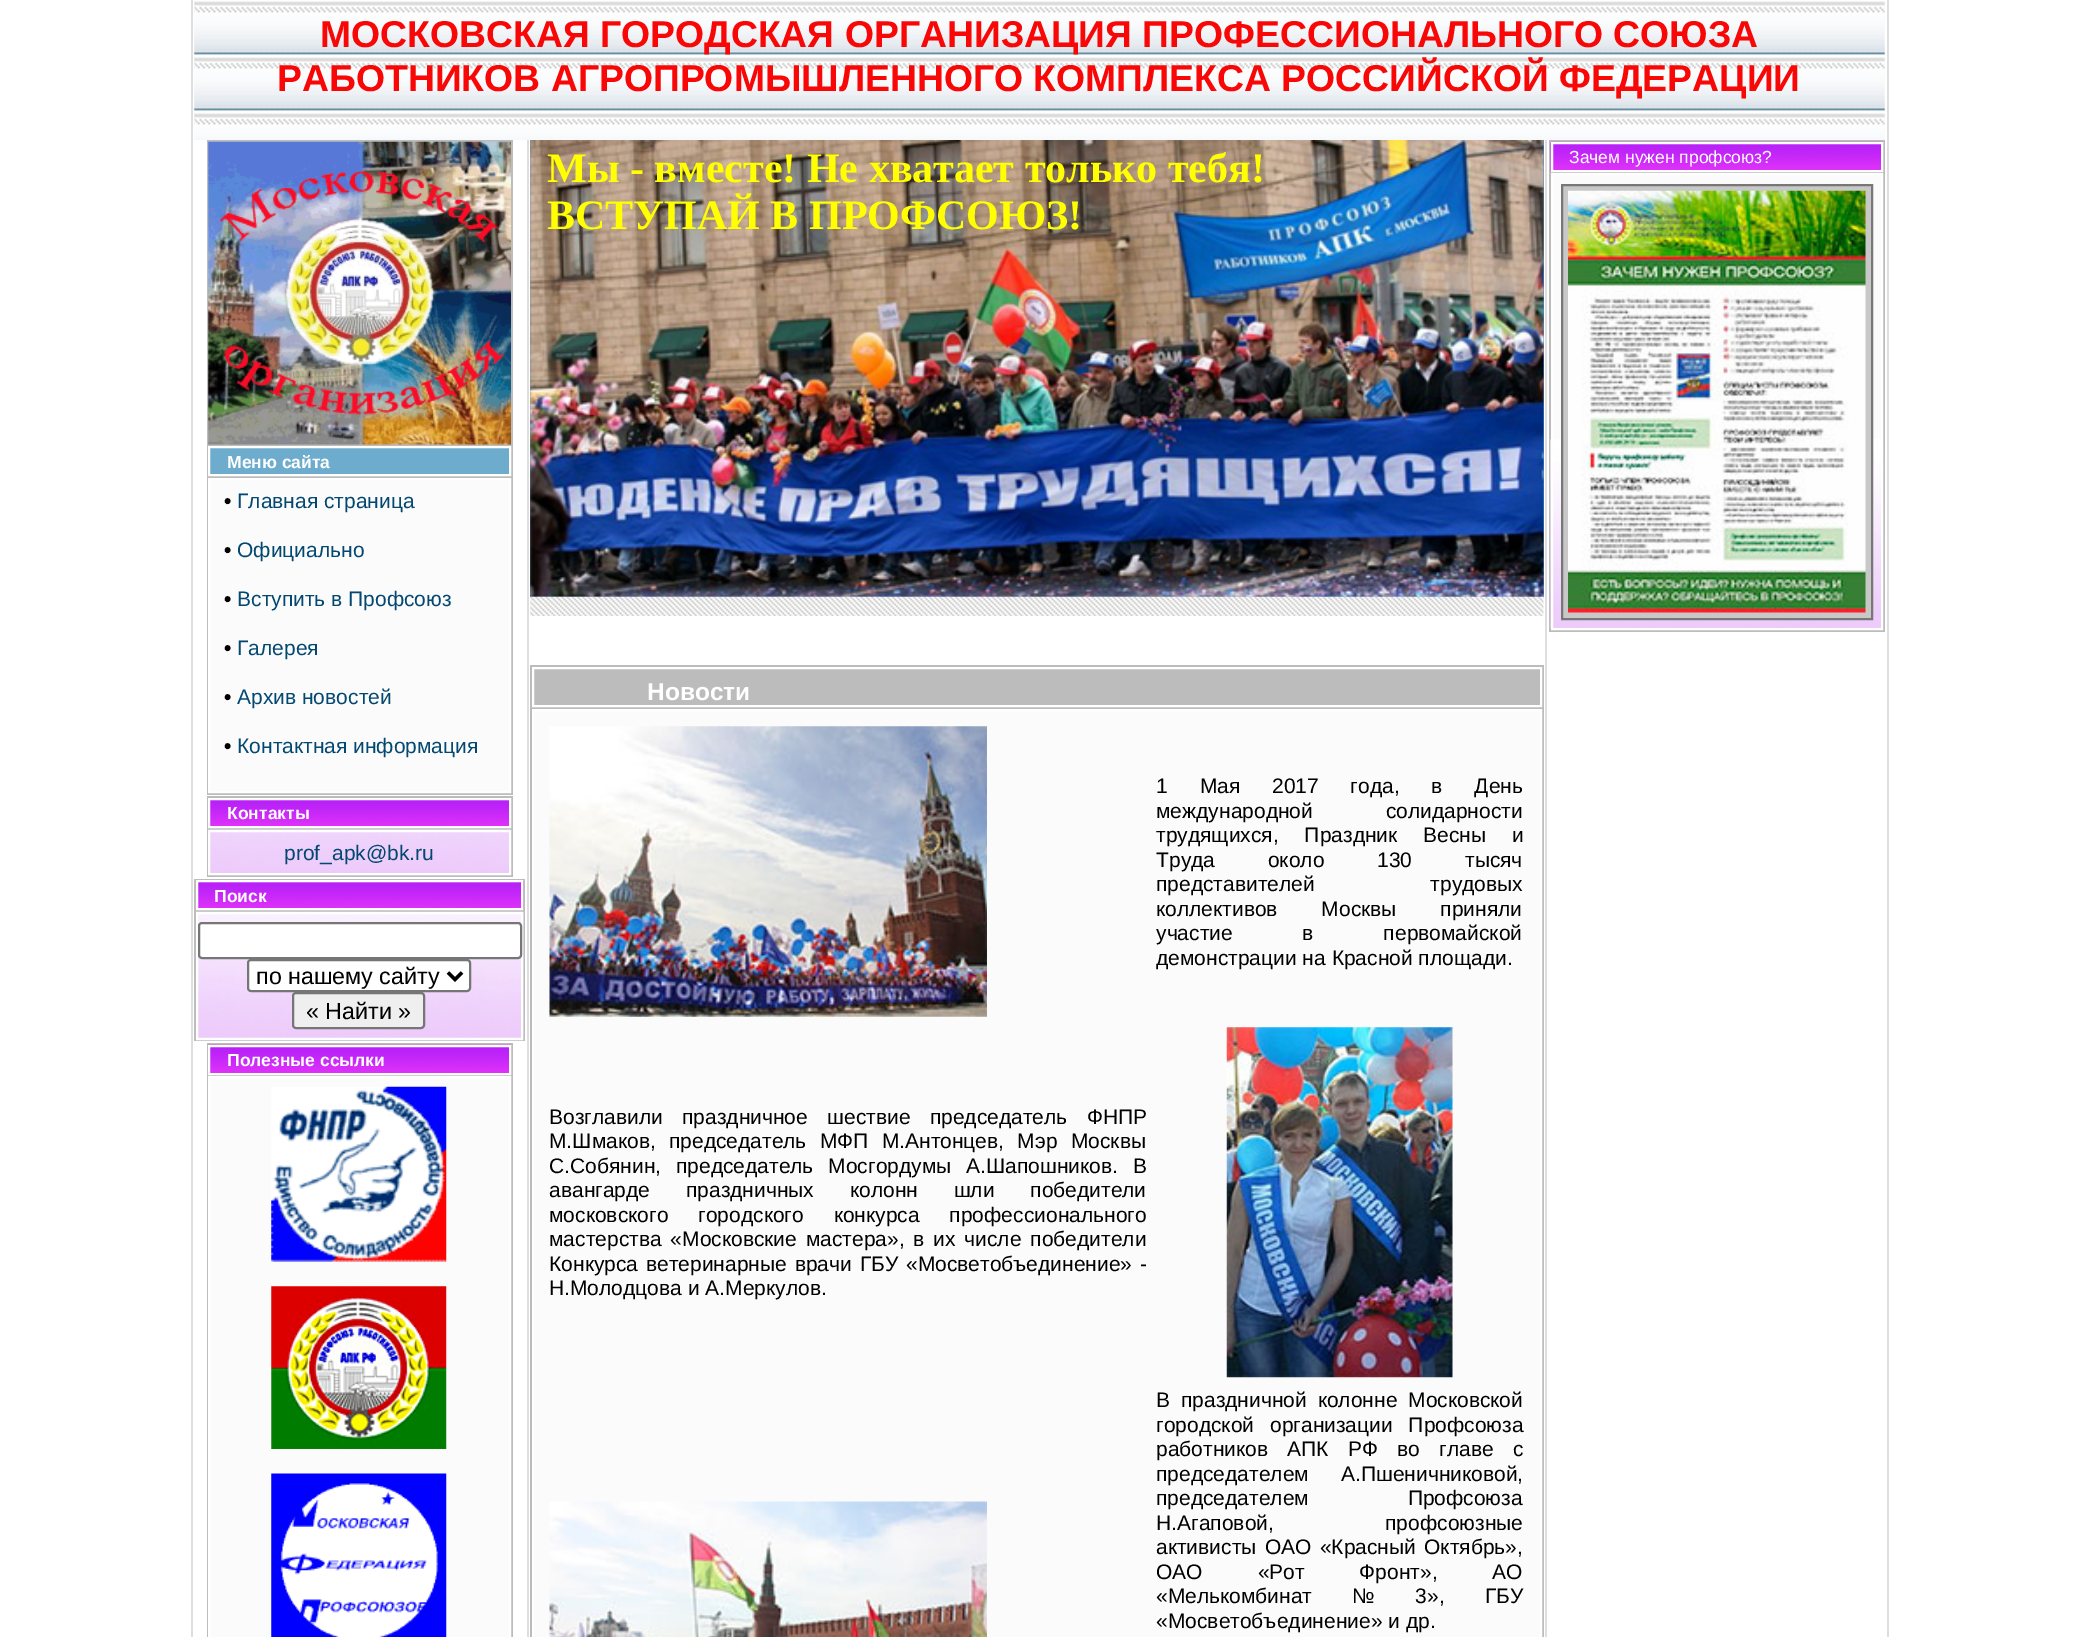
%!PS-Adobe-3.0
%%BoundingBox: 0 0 2076 1637
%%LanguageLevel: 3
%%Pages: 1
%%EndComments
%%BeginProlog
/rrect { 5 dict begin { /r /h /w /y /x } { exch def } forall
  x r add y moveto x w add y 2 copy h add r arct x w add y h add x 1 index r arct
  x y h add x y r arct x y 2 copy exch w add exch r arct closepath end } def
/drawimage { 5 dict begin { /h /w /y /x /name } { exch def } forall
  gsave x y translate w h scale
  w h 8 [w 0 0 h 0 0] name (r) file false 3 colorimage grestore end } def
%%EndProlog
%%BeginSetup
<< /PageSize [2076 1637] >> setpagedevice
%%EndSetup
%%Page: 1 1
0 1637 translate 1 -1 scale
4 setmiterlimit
1 setgray
0 0 2076 1637 rectfill
0.871 setgray
1887 0 2 1637 rectfill
191 0 2 1637 rectfill
(images/1.raw) 194 1 1691 139 drawimage
0.737 setgray
207 140 306 655 rectfill
(images/2.raw) 208 141 303 304 drawimage
0.431 0.675 0.808 setrgbcolor
newpath 209 447 moveto 510 447 lineto 510 475 lineto 209 475 lineto closepath gsave fill grestore
1 setgray
2 setlinewidth
stroke
0.984 0.984 0.988 setrgbcolor
newpath 209 479 moveto 510 479 lineto 510 792 lineto 209 792 lineto closepath gsave fill grestore
1 setgray
stroke
0.737 setgray
207 796 306 81 rectfill
(images/3.raw) 210 800 299 26 drawimage
1 setgray
209 799 301 28 rectstroke
(images/4.raw) 208 829 303 44 drawimage
209 831 301 43 rectstroke
0.737 setgray
194 879 331 162 rectfill
(images/5.raw) 198 880 326 30 drawimage
1 setgray
197 881 325 28 rectstroke
(images/6.raw) 196 911 328 127 drawimage
197 913 325 126 rectstroke
199 923 322 35 3 rrect gsave fill grestore
0.463 setgray
stroke
1 setgray
248 960 222 31 3 rrect gsave fill grestore
0.463 setgray
stroke
0 setgray
3.5 setlinewidth
newpath 448 972.5 moveto 455 979.5 lineto 462 972.5 lineto stroke
0.937 setgray
293 993 131 35 3 rrect gsave fill grestore
0.463 setgray
2 setlinewidth
stroke
0.737 setgray
207 1043 306 594 rectfill
(images/7.raw) 208 1044 303 29 drawimage
1 setgray
209 1046 301 28 rectstroke
0.984 0.984 0.988 setrgbcolor
newpath 209 1077 moveto 510 1077 lineto 510 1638 lineto 209 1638 lineto closepath gsave fill grestore
1 setgray
stroke
(images/8.raw) 271 1086 176 176 drawimage
(images/9.raw) 271 1286 176 163 drawimage
(images/10.raw) 271 1473 176 164 drawimage
0.871 setgray
1545 140 2 1497 rectfill
527 140 2 1497 rectfill
0.267 0.569 0.843 setrgbcolor
530 140 1014 457 rectfill
(images/11.raw) 530 140 1014 457 drawimage
(images/12.raw) 530 596 1014 20 drawimage
0.737 setgray
530 665 1014 972 rectfill
1 setgray
533 668 1008 38 rectstroke
0.984 0.984 0.988 setrgbcolor
newpath 533 710 moveto 1541 710 lineto 1541 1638 lineto 533 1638 lineto closepath gsave fill grestore
1 setgray
stroke
(images/13.raw) 549 726 438 291 drawimage
(images/14.raw) 1226 1027 227 351 drawimage
(images/15.raw) 549 1501 438 136 drawimage
0.737 setgray
1549 140 336 492 rectfill
(images/16.raw) 1550 141 333 31 drawimage
1 setgray
1552 143 330 28 rectstroke
0.984 0.984 0.988 setrgbcolor
1553 175 328 265 rectfill
(images/17.raw) 1550 439 331 190 drawimage
1 setgray
1552 174 330 455 rectstroke
0.784 setgray
newpath 1562 185 moveto 1872 185 lineto 1872 619 lineto 1562 619 lineto closepath gsave fill grestore
0.467 setgray
stroke
(images/18.raw) 1568 190 298 423 drawimage
/LiberationSans-Bold [37.35 0 0 -37.35 0 0] selectfont
0.976 0.024 0.024 setrgbcolor
320 47 moveto (МОСКОВСКАЯ ГОРОДСКАЯ ОРГАНИЗАЦИЯ ПРОФЕССИОНАЛЬНОГО СОЮЗА) show
277 91 moveto (РАБОТНИКОВ АГРОПРОМЫШЛЕННОГО КОМПЛЕКСА РОССИЙСКОЙ ФЕДЕРАЦИИ) show
/LiberationSans-Bold [17.5 0 0 -17.5 0 0] selectfont
1 setgray
227 468 moveto (Меню сайта) show
/LiberationSans-Bold [21 0 0 -21 0 0] selectfont
0 setgray
224 508 moveto (•) show
/LiberationSans-Regular [21 0 0 -21 0 0] selectfont
0.012 0.282 0.439 setrgbcolor
237 508 moveto (Главная страница) show
/LiberationSans-Bold [21 0 0 -21 0 0] selectfont
0 setgray
224 557 moveto (•) show
/LiberationSans-Regular [21 0 0 -21 0 0] selectfont
0.012 0.282 0.439 setrgbcolor
237 557 moveto (Официально) show
/LiberationSans-Bold [21 0 0 -21 0 0] selectfont
0 setgray
224 606 moveto (•) show
/LiberationSans-Regular [21 0 0 -21 0 0] selectfont
0.012 0.282 0.439 setrgbcolor
237 606 moveto (Вступить в Профсоюз) show
/LiberationSans-Bold [21 0 0 -21 0 0] selectfont
0 setgray
224 655 moveto (•) show
/LiberationSans-Regular [21 0 0 -21 0 0] selectfont
0.012 0.282 0.439 setrgbcolor
237 655 moveto (Галерея) show
/LiberationSans-Bold [21 0 0 -21 0 0] selectfont
0 setgray
224 704 moveto (•) show
/LiberationSans-Regular [21 0 0 -21 0 0] selectfont
0.012 0.282 0.439 setrgbcolor
237 704 moveto (Архив новостей) show
/LiberationSans-Bold [21 0 0 -21 0 0] selectfont
0 setgray
224 753 moveto (•) show
/LiberationSans-Regular [21 0 0 -21 0 0] selectfont
0.012 0.282 0.439 setrgbcolor
237 753 moveto (Контактная информация) show
/LiberationSans-Bold [17.5 0 0 -17.5 0 0] selectfont
1 setgray
227 819 moveto (Контакты) show
/LiberationSans-Regular [21 0 0 -21 0 0] selectfont
0.012 0.282 0.439 setrgbcolor
284 860 moveto (prof_apk@bk.ru) show
/LiberationSans-Bold [17.5 0 0 -17.5 0 0] selectfont
1 setgray
214 902 moveto (Поиск) show
/LiberationSans-Regular [23.25 0 0 -23.25 0 0] selectfont
0 setgray
256 984 moveto (по нашему сайту) show
306 1019 moveto (« Найти ») show
/LiberationSans-Bold [17.5 0 0 -17.5 0 0] selectfont
1 setgray
227 1066 moveto (Полезные ссылки) show
/LiberationSerif-Bold [42 0 0 -42 0 0] selectfont
1 1 0 setrgbcolor
547 182 moveto (Мы - вместе! Не хватает только тебя!) show
547 229 moveto (ВСТУПАЙ В ПРОФСОЮЗ!) show
/LiberationSans-Bold [24.5 0 0 -24.5 0 0] selectfont
1 setgray
647 700 moveto (Новости) show
/LiberationSans-Regular [21 0 0 -21 0 0] selectfont
0 setgray
1156 793 moveto 26 0 32 (1 Мая 2017 года, в День) widthshow
1156 818 moveto 67 0 32 (международной солидарности) widthshow
1156 842 moveto 20 0 32 (трудящихся, Праздник Весны и) widthshow
1156 867 moveto 47 0 32 (Труда около 130 тысяч) widthshow
1156 891 moveto 110 0 32 (представителей трудовых) widthshow
1156 916 moveto 38 0 32 (коллективов Москвы приняли) widthshow
1156 940 moveto 64 0 32 (участие в первомайской) widthshow
1156 965 moveto (демонстрации на Красной площади.) show
549 1124 moveto (Возглавили) show
682 1124 moveto 13.5 0 32 (праздничное шествие председатель ФНПР) widthshow
549 1148 moveto 7.5 0 32 (М.Шмаков, председатель МФП М.Антонцев, Мэр Москвы) widthshow
549 1173 moveto 9 0 32 (С.Собянин, председатель Мосгордумы А.Шапошников. В) widthshow
549 1197 moveto 30 0 32 (авангарде праздничных колонн шли победители) widthshow
549 1222 moveto 24 0 32 (московского городского конкурса профессионального) widthshow
549 1246 moveto 3 0 32 (мастерства «Московские мастера», в их числе победители) widthshow
549 1271 moveto 2 0 32 (Конкурса ветеринарные врачи ГБУ «Мосветобъединение» -) widthshow
549 1295 moveto (Н.Молодцова и А.Меркулов.) show
1156 1407 moveto 5 0 32 (В праздничной колонне Московской) widthshow
1156 1432 moveto 10 0 32 (городской организации Профсоюза) widthshow
1156 1456 moveto 13.5 0 32 (работников АПК РФ во главе с) widthshow
1156 1481 moveto (председателем) show
1341 1481 moveto (А.Пшеничниковой,) show
1156 1505 moveto 93 0 32 (председателем Профсоюза) widthshow
1156 1530 moveto (Н.Агаповой,) show
1385 1530 moveto (профсоюзные) show
1156 1554 moveto 2.5 0 32 (активисты ОАО «Красный Октябрь»,) widthshow
1156 1579 moveto 49 0 32 (ОАО «Рот Фронт», АО) widthshow
1156 1603 moveto 34.5 0 32 («Мелькомбинат № 3», ГБУ) widthshow
1156 1628 moveto («Мосветобъединение» и др.) show
/LiberationSans-Regular [17.5 0 0 -17.5 0 0] selectfont
1 setgray
1569 163 moveto (Зачем нужен профсоюз?) show
showpage
%%EOF
